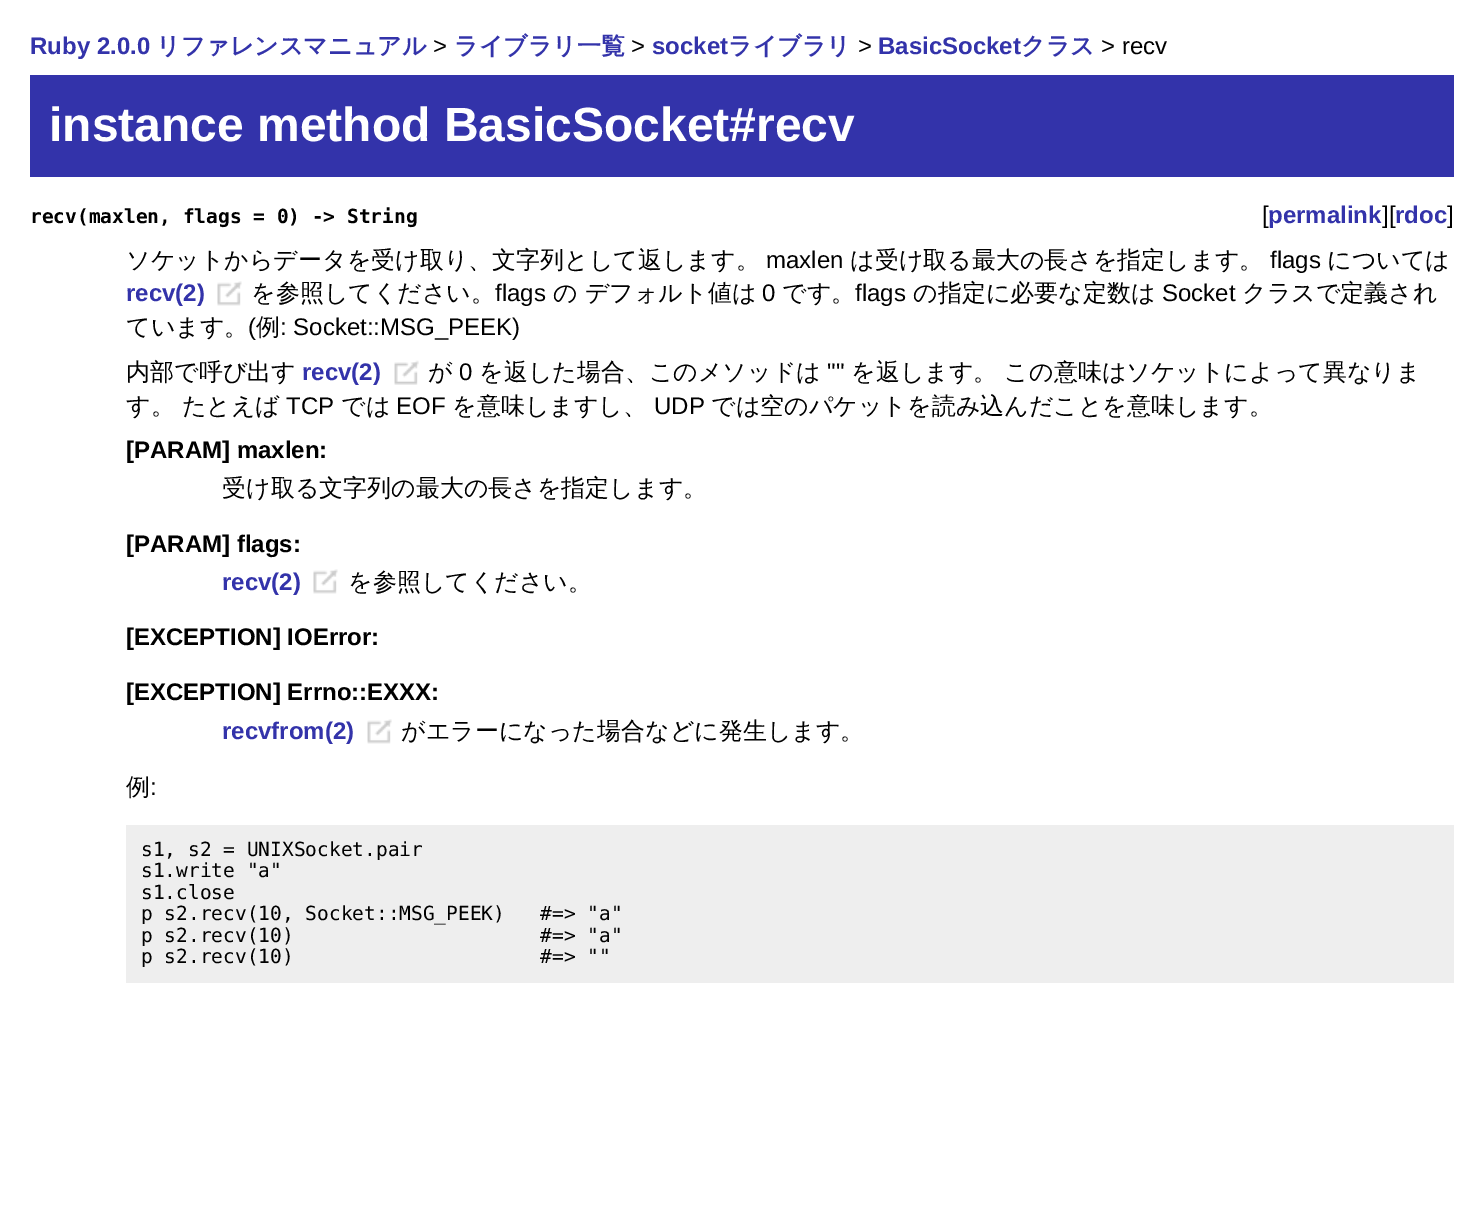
%!PS-Adobe-3.0
%%BoundingBox: 0 0 1483 1224
%%LanguageLevel: 3
%%Pages: 1
%%EndComments
%%BeginProlog
/drawimage { 5 dict begin { /h /w /y /x /name } { exch def } forall
  gsave x y translate w h scale
  w h 8 [w 0 0 h 0 0] name (r) file false 3 colorimage grestore end } def
%%EndProlog
%%BeginSetup
<< /PageSize [1483 1224] >> setpagedevice
%%EndSetup
%%Page: 1 1
0 1224 translate 1 -1 scale
4 setmiterlimit
1 setgray
0 0 1483 1224 rectfill
0.2 0.2 0.667 setrgbcolor
30 75 1424 102 rectfill
(images/1.raw) 217 281 25 25 drawimage
(images/2.raw) 394 360 25 25 drawimage
(images/1.raw) 313 569 25 25 drawimage
(images/3.raw) 367 719 25 25 drawimage
0.933 setgray
126 825 1328 158 rectfill
/LiberationSans-Bold [24 0 0 -24 0 0] selectfont
0.2 0.2 0.667 setrgbcolor
30 54 moveto (Ruby 2.0.0) show
/WenQuanYiZenHei-Bold [24 0 0 -24 0 0] selectfont
156 54 moveto (リファレンスマニュアル) show
/LiberationSans-Regular [24 0 0 -24 0 0] selectfont
0 setgray
433 54 moveto (>) show
/WenQuanYiZenHei-Bold [24 0 0 -24 0 0] selectfont
0.2 0.2 0.667 setrgbcolor
454 54 moveto (ライブラリ一覧) show
/LiberationSans-Regular [24 0 0 -24 0 0] selectfont
0 setgray
631 54 moveto (>) show
/LiberationSans-Bold [24 0 0 -24 0 0] selectfont
0.2 0.2 0.667 setrgbcolor
652 54 moveto (socket) show
/WenQuanYiZenHei-Bold [24 0 0 -24 0 0] selectfont
728 54 moveto (ライブラリ) show
/LiberationSans-Regular [24 0 0 -24 0 0] selectfont
0 setgray
858 54 moveto (>) show
/LiberationSans-Bold [24 0 0 -24 0 0] selectfont
0.2 0.2 0.667 setrgbcolor
878 54 moveto (BasicSocket) show
/WenQuanYiZenHei-Bold [24 0 0 -24 0 0] selectfont
1021 54 moveto (クラス) show
/LiberationSans-Regular [24 0 0 -24 0 0] selectfont
0 setgray
1101 54 moveto (> recv) show
/LiberationSans-Bold [48 0 0 -48 0 0] selectfont
1 setgray
49 141 moveto (instance method BasicSocket#recv) show
/DejaVuSansMono-Bold [19.5 0 0 -19.5 0 0] selectfont
0 setgray
30 223 moveto (recv\(maxlen, flags = 0\) -> String) show
/LiberationSans-Regular [24 0 0 -24 0 0] selectfont
1262 223 moveto ([) show
/LiberationSans-Bold [24 0 0 -24 0 0] selectfont
0.2 0.2 0.667 setrgbcolor
1268 223 moveto (permalink) show
/LiberationSans-Regular [24 0 0 -24 0 0] selectfont
0 setgray
1382 223 moveto (][) show
/LiberationSans-Bold [24 0 0 -24 0 0] selectfont
0.2 0.2 0.667 setrgbcolor
1395 223 moveto (rdoc) show
/LiberationSans-Regular [24 0 0 -24 0 0] selectfont
0 setgray
1447 223 moveto (]) show
/WenQuanYiZenHei-Medium [24 0 0 -24 0 0] selectfont
126 268 moveto (ソケットからデータを受け取り、文字列として返します。) show
/LiberationSans-Regular [24 0 0 -24 0 0] selectfont
766 268 moveto (maxlen) show
/WenQuanYiZenHei-Medium [24 0 0 -24 0 0] selectfont
850 268 moveto (は受け取る最大の長さを指定します。) show
/LiberationSans-Regular [24 0 0 -24 0 0] selectfont
1270 268 moveto (flags) show
/WenQuanYiZenHei-Medium [24 0 0 -24 0 0] selectfont
1327 268 moveto (については) show
/LiberationSans-Bold [24 0 0 -24 0 0] selectfont
0.2 0.2 0.667 setrgbcolor
126 301 moveto (recv\(2\)) show
/WenQuanYiZenHei-Medium [24 0 0 -24 0 0] selectfont
0 setgray
251 301 moveto (を参照してください。) show
/LiberationSans-Regular [24 0 0 -24 0 0] selectfont
495 301 moveto (flags) show
/WenQuanYiZenHei-Medium [24 0 0 -24 0 0] selectfont
553 301 moveto (の デフォルト値は) show
/LiberationSans-Regular [24 0 0 -24 0 0] selectfont
762 301 moveto (0) show
/WenQuanYiZenHei-Medium [24 0 0 -24 0 0] selectfont
782 301 moveto (です。) show
/LiberationSans-Regular [24 0 0 -24 0 0] selectfont
855 301 moveto (flags) show
/WenQuanYiZenHei-Medium [24 0 0 -24 0 0] selectfont
913 301 moveto (の指定に必要な定数は) show
/LiberationSans-Regular [24 0 0 -24 0 0] selectfont
1162 301 moveto (Socket) show
/WenQuanYiZenHei-Medium [24 0 0 -24 0 0] selectfont
1242 301 moveto (クラスで定義され) show
126 335 moveto (ています。) show
/LiberationSans-Regular [24 0 0 -24 0 0] selectfont
248 335 moveto (\() show
/WenQuanYiZenHei-Medium [24 0 0 -24 0 0] selectfont
256 335 moveto (例) show
/LiberationSans-Regular [24 0 0 -24 0 0] selectfont
280 335 moveto (: Socket::MSG_PEEK\)) show
/WenQuanYiZenHei-Medium [24 0 0 -24 0 0] selectfont
126 380 moveto (内部で呼び出す) show
/LiberationSans-Bold [24 0 0 -24 0 0] selectfont
0.2 0.2 0.667 setrgbcolor
302 380 moveto (recv\(2\)) show
/WenQuanYiZenHei-Medium [24 0 0 -24 0 0] selectfont
0 setgray
428 380 moveto (が) show
/LiberationSans-Regular [24 0 0 -24 0 0] selectfont
459 380 moveto (0) show
/WenQuanYiZenHei-Medium [24 0 0 -24 0 0] selectfont
479 380 moveto (を返した場合、このメソッドは) show
/LiberationSans-Regular [24 0 0 -24 0 0] selectfont
827 380 moveto ("") show
/WenQuanYiZenHei-Medium [24 0 0 -24 0 0] selectfont
851 380 moveto (を返します。 この意味はソケットによって異なりま) show
126 414 moveto (す。 たとえば) show
/LiberationSans-Regular [24 0 0 -24 0 0] selectfont
286 414 moveto (TCP) show
/WenQuanYiZenHei-Medium [24 0 0 -24 0 0] selectfont
341 414 moveto (では) show
/LiberationSans-Regular [24 0 0 -24 0 0] selectfont
396 414 moveto (EOF) show
/WenQuanYiZenHei-Medium [24 0 0 -24 0 0] selectfont
452 414 moveto (を意味しますし、) show
/LiberationSans-Regular [24 0 0 -24 0 0] selectfont
654 414 moveto (UDP) show
/WenQuanYiZenHei-Medium [24 0 0 -24 0 0] selectfont
711 414 moveto (では空のパケットを読み込んだことを意味します。) show
/LiberationSans-Bold [24 0 0 -24 0 0] selectfont
126 458 moveto ([PARAM] maxlen:) show
/WenQuanYiZenHei-Medium [24 0 0 -24 0 0] selectfont
222 496 moveto (受け取る文字列の最大の長さを指定します。) show
/LiberationSans-Bold [24 0 0 -24 0 0] selectfont
126 552 moveto ([PARAM] flags:) show
0.2 0.2 0.667 setrgbcolor
222 590 moveto (recv\(2\)) show
/WenQuanYiZenHei-Medium [24 0 0 -24 0 0] selectfont
0 setgray
348 590 moveto (を参照してください。) show
/LiberationSans-Bold [24 0 0 -24 0 0] selectfont
126 645 moveto ([EXCEPTION] IOError:) show
126 700 moveto ([EXCEPTION] Errno::EXXX:) show
0.2 0.2 0.667 setrgbcolor
222 739 moveto (recvfrom\(2\)) show
/WenQuanYiZenHei-Medium [24 0 0 -24 0 0] selectfont
0 setgray
401 739 moveto (がエラーになった場合などに発生します。) show
126 795 moveto (例) show
/LiberationSans-Regular [24 0 0 -24 0 0] selectfont
150 795 moveto (:) show
/DejaVuSansMono-Regular [19.5 0 0 -19.5 0 0] selectfont
141 856 moveto (s1, s2 = UNIXSocket.pair) show
141 877 moveto (s1.write "a") show
141 899 moveto (s1.close) show
141 920 moveto (p s2.recv\(10, Socket::MSG_PEEK\)   #=> "a") show
141 942 moveto (p s2.recv\(10\)                     #=> "a") show
141 963 moveto (p s2.recv\(10\)                     #=> "") show
showpage
%%EOF
